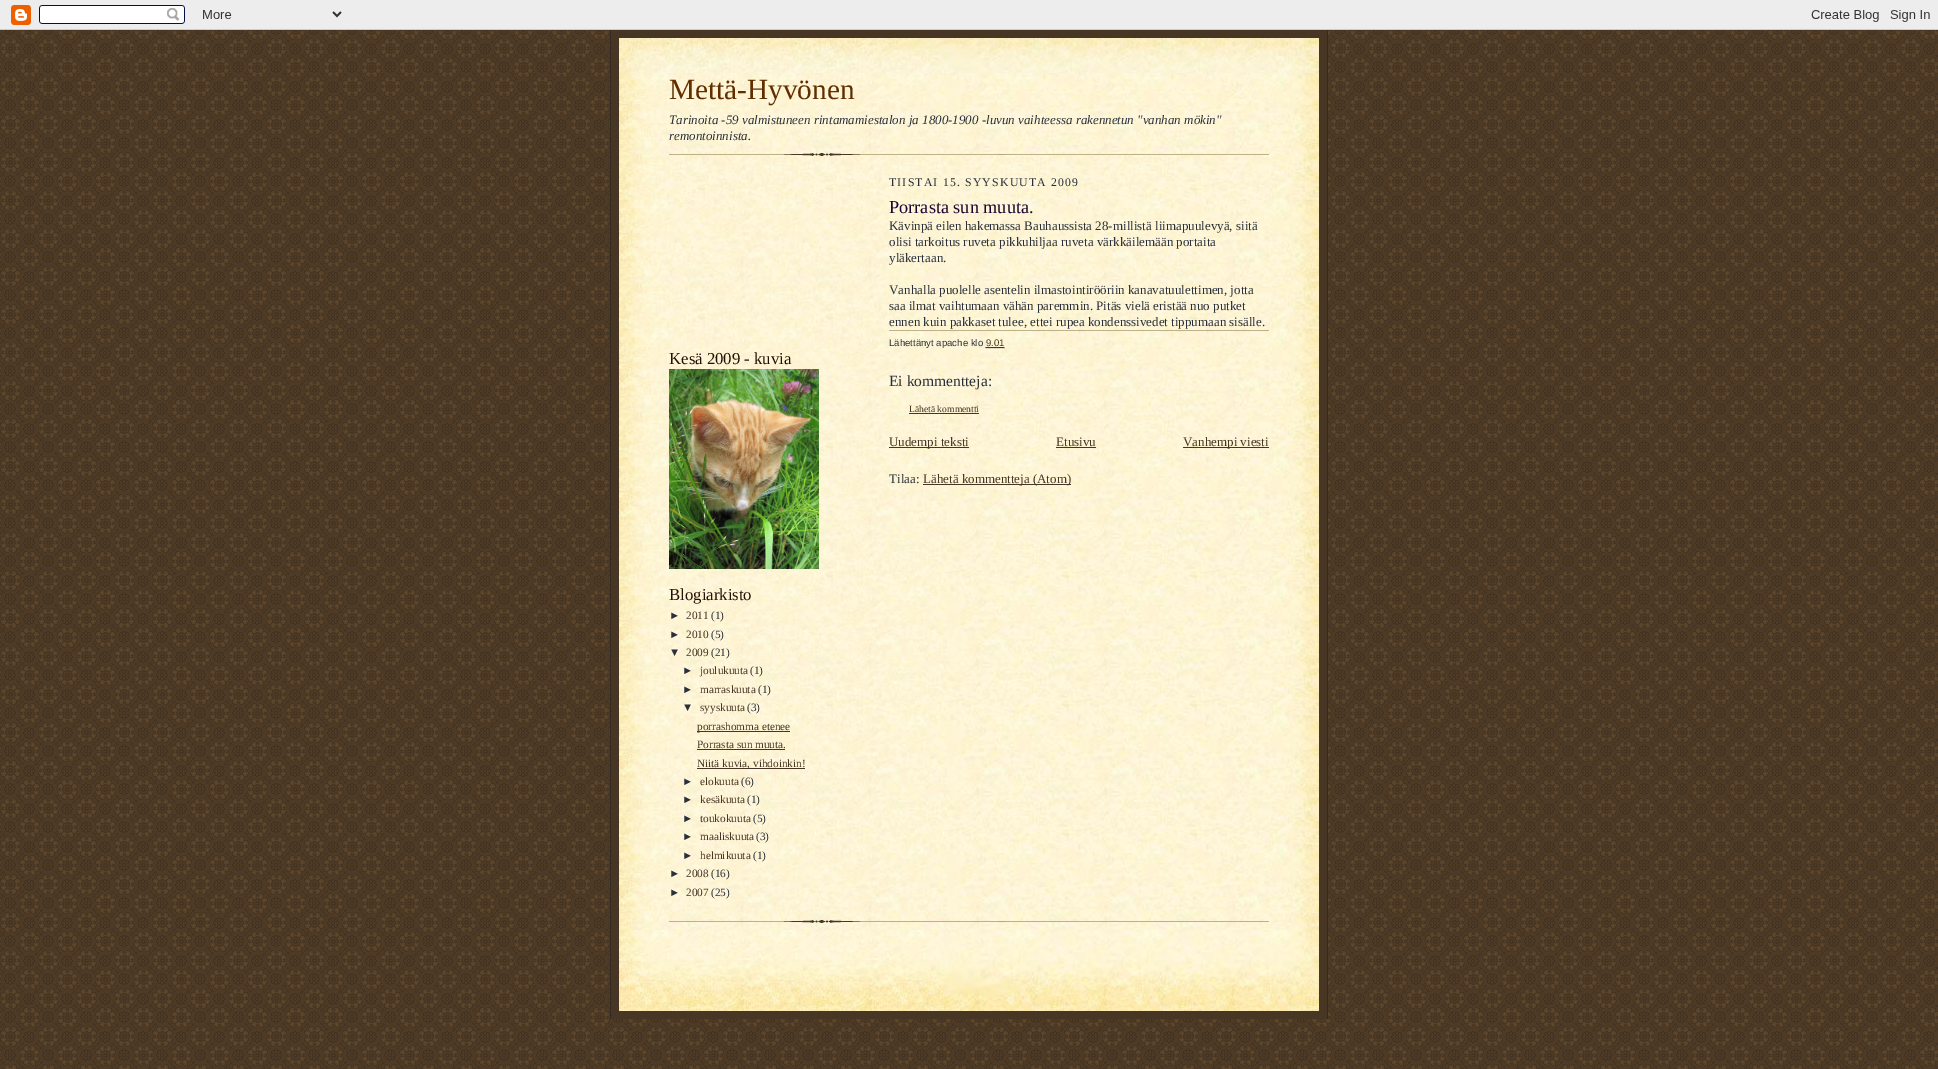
%!PS-Adobe-3.0
%%BoundingBox: 0 0 1938 1069
%%LanguageLevel: 3
%%Pages: 1
%%EndComments
%%BeginProlog
/drawimage { 5 dict begin { /h /w /y /x /name } { exch def } forall
  gsave x y translate w h scale
  w h 8 [w 0 0 h 0 0] name (r) file false 3 colorimage grestore end } def
%%EndProlog
%%BeginSetup
<< /PageSize [1938 1069] >> setpagedevice
%%EndSetup
%%Page: 1 1
0 1069 translate 1 -1 scale
4 setmiterlimit
1 setgray
0 0 1938 1069 rectfill
(images/1.raw) 0 30 1938 1039 drawimage
(images/2.raw) 0 0 1938 30 drawimage
0.278 0.212 0.141 setrgbcolor
611 30 716 989 rectfill
0.2 0.165 0.141 setrgbcolor
1327 30 1 989 rectfill
610 30 1 989 rectfill
(images/3.raw) 619 38 700 35 drawimage
(images/4.raw) 619 73 700 857 drawimage
(images/5.raw) 669 153 600 3 drawimage
(images/6.raw) 669 369 150 200 drawimage
0.278 0.212 0.141 setrgbcolor
697 731 93 1 rectfill
697 749 88 1 rectfill
697 768 108 1 rectfill
0.749 0.694 0.525 setrgbcolor
889 330 380 1 rectfill
0.278 0.212 0.141 setrgbcolor
[1 1] 0 setdash
newpath 985.5 347.5 moveto 1004.5 347.5 lineto stroke
986 347 18 1 rectfill
909 413 70 1 rectfill
889 447 80 1 rectfill
1056 447 40 1 rectfill
1183 447 86 1 rectfill
923 484 148 1 rectfill
(images/7.raw) 669 920 600 3 drawimage
(images/8.raw) 619 930 700 81 drawimage
/LiberationSerif-Regular [29.25 0 0 -29.25 0 0] selectfont
0.38 0.18 0 setrgbcolor
669 99 moveto (Mettä-Hyvönen) show
/LiberationSerif-Italic [13 0 0 -13 0 0] selectfont
0.161 0.188 0.231 setrgbcolor
669 124 moveto (Tarinoita -59 valmistuneen rintamamiestalon ja 1800-1900 -luvun vaihteessa rakennetun "vanhan mökin") show
669 140 moveto (remontoinnista.) show
/LiberationSerif-Regular [16.75 0 0 -16.75 0 0] selectfont
0.129 0.067 0.016 setrgbcolor
669 364 moveto (Kesä 2009 - kuvia) show
669 600 moveto (Blogiarkisto) show
/LiberationSans-Regular [11.25 0 0 -11.25 0 0] selectfont
0.161 0.188 0.231 setrgbcolor
669 619 moveto (►) show
/LiberationSerif-Regular [11.25 0 0 -11.25 0 0] selectfont
0.278 0.212 0.141 setrgbcolor
686 619 moveto (2011) show
0.161 0.188 0.231 setrgbcolor
711 619 moveto (\(1\)) show
/LiberationSans-Regular [11.25 0 0 -11.25 0 0] selectfont
669 638 moveto (►) show
/LiberationSerif-Regular [11.25 0 0 -11.25 0 0] selectfont
0.278 0.212 0.141 setrgbcolor
686 638 moveto (2010) show
0.161 0.188 0.231 setrgbcolor
711 638 moveto (\(5\)) show
/LiberationSans-Regular [11.25 0 0 -11.25 0 0] selectfont
669 656 moveto (▼) show
/LiberationSerif-Regular [11.25 0 0 -11.25 0 0] selectfont
0.278 0.212 0.141 setrgbcolor
686 656 moveto (2009) show
0.161 0.188 0.231 setrgbcolor
711 656 moveto (\(21\)) show
/LiberationSans-Regular [11.25 0 0 -11.25 0 0] selectfont
682 674 moveto (►) show
/LiberationSerif-Regular [11.25 0 0 -11.25 0 0] selectfont
0.278 0.212 0.141 setrgbcolor
700 674 moveto (joulukuuta) show
0.161 0.188 0.231 setrgbcolor
750 674 moveto (\(1\)) show
/LiberationSans-Regular [11.25 0 0 -11.25 0 0] selectfont
682 693 moveto (►) show
/LiberationSerif-Regular [11.25 0 0 -11.25 0 0] selectfont
0.278 0.212 0.141 setrgbcolor
700 693 moveto (marraskuuta) show
0.161 0.188 0.231 setrgbcolor
758 693 moveto (\(1\)) show
/LiberationSans-Regular [11.25 0 0 -11.25 0 0] selectfont
682 711 moveto (▼) show
/LiberationSerif-Regular [11.25 0 0 -11.25 0 0] selectfont
0.278 0.212 0.141 setrgbcolor
700 711 moveto (syyskuuta) show
0.161 0.188 0.231 setrgbcolor
747 711 moveto (\(3\)) show
0.278 0.212 0.141 setrgbcolor
697 730 moveto (porrashomma etenee) show
697 748 moveto (Porrasta sun muuta.) show
697 767 moveto (Niitä kuvia, vihdoinkin!) show
/LiberationSans-Regular [11.25 0 0 -11.25 0 0] selectfont
0.161 0.188 0.231 setrgbcolor
682 785 moveto (►) show
/LiberationSerif-Regular [11.25 0 0 -11.25 0 0] selectfont
0.278 0.212 0.141 setrgbcolor
700 785 moveto (elokuuta) show
0.161 0.188 0.231 setrgbcolor
741 785 moveto (\(6\)) show
/LiberationSans-Regular [11.25 0 0 -11.25 0 0] selectfont
682 803 moveto (►) show
/LiberationSerif-Regular [11.25 0 0 -11.25 0 0] selectfont
0.278 0.212 0.141 setrgbcolor
700 803 moveto (kesäkuuta) show
0.161 0.188 0.231 setrgbcolor
747 803 moveto (\(1\)) show
/LiberationSans-Regular [11.25 0 0 -11.25 0 0] selectfont
682 822 moveto (►) show
/LiberationSerif-Regular [11.25 0 0 -11.25 0 0] selectfont
0.278 0.212 0.141 setrgbcolor
700 822 moveto (toukokuuta) show
0.161 0.188 0.231 setrgbcolor
753 822 moveto (\(5\)) show
/LiberationSans-Regular [11.25 0 0 -11.25 0 0] selectfont
682 840 moveto (►) show
/LiberationSerif-Regular [11.25 0 0 -11.25 0 0] selectfont
0.278 0.212 0.141 setrgbcolor
700 840 moveto (maaliskuuta) show
0.161 0.188 0.231 setrgbcolor
756 840 moveto (\(3\)) show
/LiberationSans-Regular [11.25 0 0 -11.25 0 0] selectfont
682 859 moveto (►) show
/LiberationSerif-Regular [11.25 0 0 -11.25 0 0] selectfont
0.278 0.212 0.141 setrgbcolor
700 859 moveto (helmikuuta) show
0.161 0.188 0.231 setrgbcolor
753 859 moveto (\(1\)) show
/LiberationSans-Regular [11.25 0 0 -11.25 0 0] selectfont
669 877 moveto (►) show
/LiberationSerif-Regular [11.25 0 0 -11.25 0 0] selectfont
0.278 0.212 0.141 setrgbcolor
686 877 moveto (2008) show
0.161 0.188 0.231 setrgbcolor
711 877 moveto (\(16\)) show
/LiberationSans-Regular [11.25 0 0 -11.25 0 0] selectfont
669 896 moveto (►) show
/LiberationSerif-Regular [11.25 0 0 -11.25 0 0] selectfont
0.278 0.212 0.141 setrgbcolor
686 896 moveto (2007) show
0.161 0.188 0.231 setrgbcolor
711 896 moveto (\(25\)) show
/LiberationSerif-Regular [11.75 0 0 -11.75 0 0] selectfont
889 186 moveto 1.2 0 (TIISTAI 15. SYYSKUUTA 2009) ashow
/LiberationSerif-Regular [18.25 0 0 -18.25 0 0] selectfont
0.106 0.016 0.192 setrgbcolor
889 213 moveto (Porrasta sun muuta.) show
/LiberationSerif-Regular [13 0 0 -13 0 0] selectfont
0.161 0.188 0.231 setrgbcolor
889 230 moveto (Kävinpä eilen hakemassa Bauhaussista 28-millistä liimapuulevyä, siitä) show
889 246 moveto (olisi tarkoitus ruveta pikkuhiljaa ruveta värkkäilemään portaita) show
889 262 moveto (yläkertaan.) show
889 294 moveto (Vanhalla puolelle asentelin ilmastointirööriin kanavatuulettimen, jotta) show
889 310 moveto (saa ilmat vaihtumaan vähän paremmin. Pitäs vielä eristää nuo putket) show
889 326 moveto (ennen kuin pakkaset tulee, ettei rupea kondenssivedet tippumaan sisälle.) show
/LiberationSans-Regular [9.6 0 0 -9.6 0 0] selectfont
889 346 moveto (Lähettänyt apache klo) show
0.278 0.212 0.141 setrgbcolor
986 346 moveto (9.01) show
/LiberationSerif-Regular [15.5 0 0 -15.5 0 0] selectfont
0.161 0.188 0.231 setrgbcolor
889 386 moveto (Ei kommentteja:) show
/LiberationSerif-Regular [9.6 0 0 -9.6 0 0] selectfont
0.278 0.212 0.141 setrgbcolor
909 412 moveto (Lähetä kommentti) show
/LiberationSerif-Regular [13 0 0 -13 0 0] selectfont
889 446 moveto (Uudempi teksti) show
1056 446 moveto (Etusivu) show
1183 446 moveto (Vanhempi viesti) show
0.161 0.188 0.231 setrgbcolor
889 483 moveto (Tilaa:) show
0.278 0.212 0.141 setrgbcolor
923 483 moveto (Lähetä kommentteja \(Atom\)) show
showpage
%%EOF
